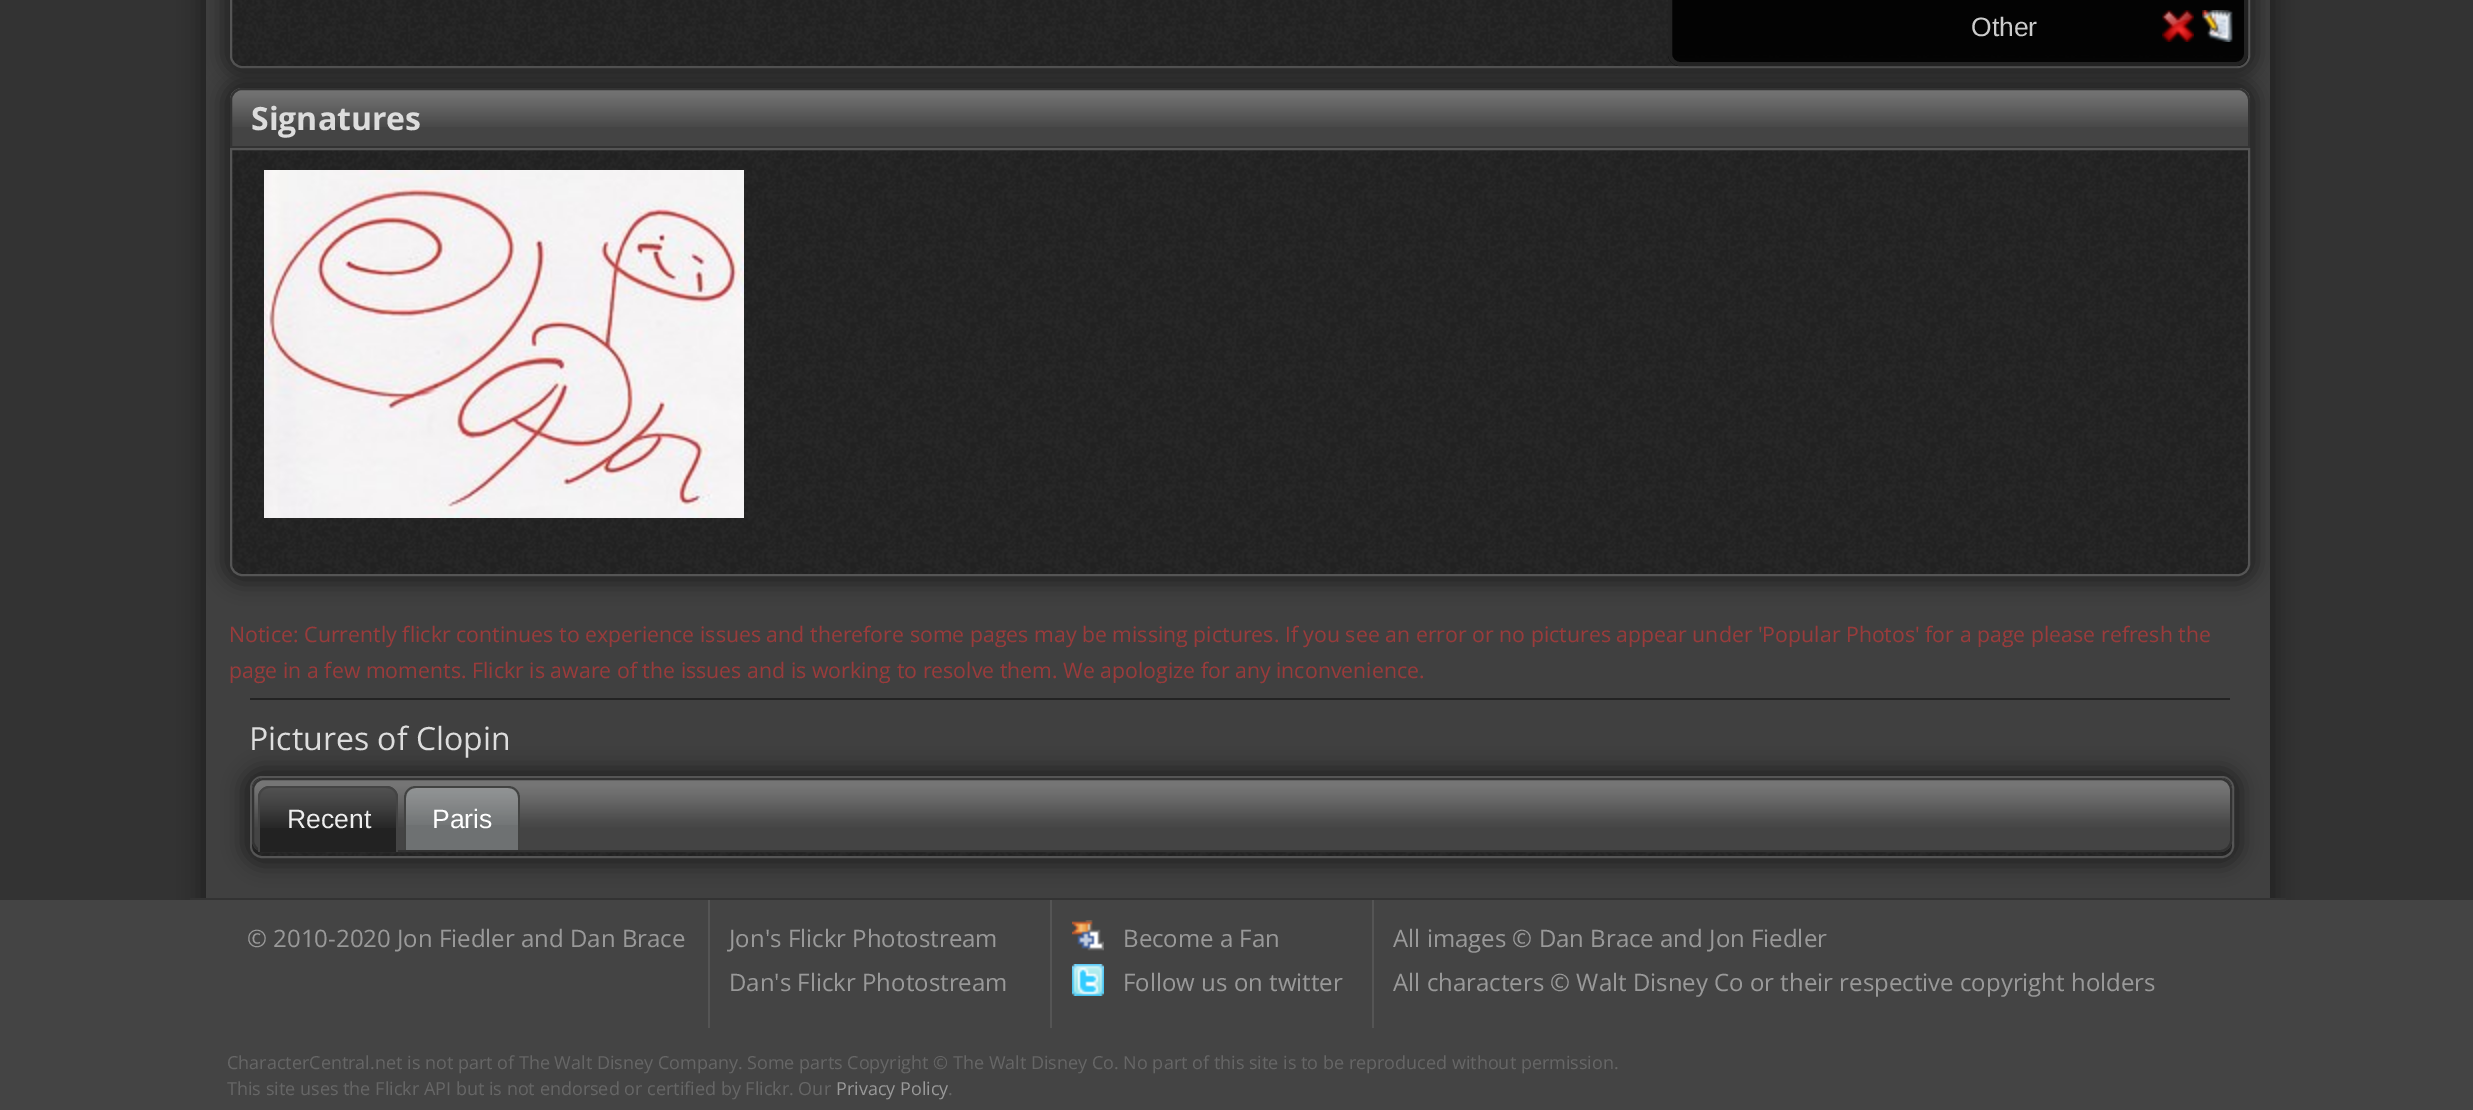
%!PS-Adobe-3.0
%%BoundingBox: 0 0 2473 1110
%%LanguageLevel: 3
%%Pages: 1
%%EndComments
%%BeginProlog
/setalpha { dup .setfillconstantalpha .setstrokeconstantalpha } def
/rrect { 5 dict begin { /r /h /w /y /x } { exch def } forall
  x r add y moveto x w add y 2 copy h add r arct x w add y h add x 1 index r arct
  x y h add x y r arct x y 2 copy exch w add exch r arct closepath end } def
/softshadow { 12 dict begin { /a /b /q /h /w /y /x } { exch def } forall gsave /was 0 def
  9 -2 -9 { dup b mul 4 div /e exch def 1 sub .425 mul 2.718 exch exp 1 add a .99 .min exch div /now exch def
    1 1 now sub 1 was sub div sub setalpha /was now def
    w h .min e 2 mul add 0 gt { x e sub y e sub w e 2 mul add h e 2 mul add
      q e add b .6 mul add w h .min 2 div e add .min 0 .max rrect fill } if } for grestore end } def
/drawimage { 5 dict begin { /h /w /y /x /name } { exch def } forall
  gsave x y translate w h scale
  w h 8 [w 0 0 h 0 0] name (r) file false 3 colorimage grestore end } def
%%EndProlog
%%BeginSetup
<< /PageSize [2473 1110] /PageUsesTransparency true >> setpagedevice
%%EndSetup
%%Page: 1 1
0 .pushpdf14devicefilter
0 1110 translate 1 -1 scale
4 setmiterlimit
0.2 setgray
0 0 2473 1110 rectfill
0.133 setgray
198 -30 2080 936 0 10 1 softshadow
0.251 setgray
206 0 2064 898 rectfill
0.133 setgray
222 -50 2036 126 20 10 1 softshadow
(images/1.raw) 230 0 2020 68 drawimage
0.333 setgray
2 setlinewidth
newpath 231 -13 moveto 2249 -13 lineto 2249 56 lineto 2249 62 2244 67 2238 67 curveto 242 67 lineto 236 67 231 62 231 56 curveto closepath stroke
0.012 setgray
newpath 1668 -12 moveto 2248 -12 lineto 2248 54 lineto 2248 60.5 2242.5 66 2236 66 curveto 1680 66 lineto 1673.5 66 1668 60.5 1668 54 curveto closepath fill
(images/2.raw) 1668 55 580 11 drawimage
0.137 setgray
4 setlinewidth
newpath 1670 -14 moveto 2246 -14 lineto 2246 54 lineto 2246 59.5 2241.5 64 2236 64 curveto 1680 64 lineto 1674.5 64 1670 59.5 1670 54 curveto closepath stroke
(images/3.raw) 2162 10 32 32 drawimage
(images/4.raw) 2202 10 31 32 drawimage
0.133 setgray
222 80 2036 504 20 10 1 softshadow
0.267 setgray
newpath 242 88 moveto 2238 88 lineto 2244.5 88 2250 93.5 2250 100 curveto 2250 148 lineto 230 148 lineto 230 100 lineto 230 93.5 235.5 88 242 88 curveto closepath fill
(images/5.raw) 230 88 2020 39 drawimage
0.2 setgray
2 setlinewidth
newpath 242 89 moveto 2238 89 lineto 2244 89 2249 94 2249 100 curveto 2249 147 lineto 231 147 lineto 231 100 lineto 231 94 236 89 242 89 curveto closepath stroke
(images/6.raw) 230 150 2020 426 drawimage
0.333 setgray
newpath 231 149 moveto 2249 149 lineto 2249 564 lineto 2249 570 2244 575 2238 575 curveto 242 575 lineto 236 575 231 570 231 564 curveto closepath stroke
(images/7.raw) 264 170 480 348 drawimage
0.137 setgray
250 698 1980 2 rectfill
0.133 setgray
242 768 2000 98 20 10 1 softshadow
(images/8.raw) 250 776 1984 82 drawimage
0.333 setgray
251 777 1982 80 11 rrect stroke
(images/9.raw) 252 778 1980 74 drawimage
0.2 setgray
253 779 1978 72 11 rrect stroke
0.133 setgray
newpath 270 786 moveto 386 786 lineto 392.5 786 398 791.5 398 798 curveto 398 852 lineto 258 852 lineto 258 798 lineto 258 791.5 263.5 786 270 786 curveto closepath fill
(images/10.raw) 258 786 140 42 drawimage
0.267 setgray
newpath 270 786 moveto 386 786 lineto 393 786 398 791 398 798 curveto 398 852 lineto 258 852 lineto 258 798 lineto 258 791 263 786 270 786 curveto closepath 270 788 moveto 386 788 lineto 392 788 396 792 396 798 curveto 396 852 lineto 260 852 lineto 260 798 lineto 260 792 264 788 270 788 curveto closepath eofill
0.431 0.443 0.447 setrgbcolor
newpath 416 786 moveto 508 786 lineto 514.5 786 520 791.5 520 798 curveto 520 850 lineto 404 850 lineto 404 798 lineto 404 791.5 409.5 786 416 786 curveto closepath fill
(images/11.raw) 404 786 116 39 drawimage
0.259 0.263 0.259 setrgbcolor
newpath 416 786 moveto 508 786 lineto 515 786 520 791 520 798 curveto 520 850 lineto 404 850 lineto 404 798 lineto 404 791 409 786 416 786 curveto closepath 416 788 moveto 508 788 lineto 514 788 518 792 518 798 curveto 518 850 lineto 406 850 lineto 406 798 lineto 406 792 410 788 416 788 curveto closepath eofill
0.267 setgray
0 900 2473 210 rectfill
0.2 setgray
190 898 2096 2 rectfill
0.333 setgray
708 900 2 128 rectfill
1050 900 2 128 rectfill
(images/12.raw) 1072 920 32 31 drawimage
(images/13.raw) 1072 964 32 32 drawimage
1372 900 2 128 rectfill
/LiberationSans-Regular [26.5 0 0 -26.5 0 0] selectfont
0.8 setgray
1971 36 moveto (Other) show
/OpenSans-Bold [32 0 0 -32 0 0] selectfont
0.867 setgray
251 130 moveto (Signatures) show
/OpenSans-Regular [21.33 0 0 -21.33 0 0] selectfont
0.6 0.231 0.231 setrgbcolor
229 642 moveto (Notice: Currently flickr continues to experience issues and therefore some pages may be missing pictures. If you see an error or no pictures appear under 'Popular Photos' for a page please refresh the) show
229 678 moveto (page in a few moments. Flickr is aware of the issues and is working to resolve them.) show
1063 678 moveto (We apologize for any inconvenience.) show
/OpenSans-Regular [32 0 0 -32 0 0] selectfont
0.867 setgray
249 750 moveto (Pictures of Clopin) show
/LiberationSans-Regular [26.5 0 0 -26.5 0 0] selectfont
0.933 setgray
287 828 moveto (Recent) show
1 setgray
432 828 moveto (Paris) show
/OpenSans-Regular [24 0 0 -24 0 0] selectfont
0.6 setgray
247 947 moveto (© 2010-2020 Jon Fiedler and Dan Brace) show
729 947 moveto (Jon's Flickr Photostream) show
729 991 moveto (Dan's Flickr Photostream) show
1123 947 moveto (Become a Fan) show
1123 991 moveto (Follow us on twitter) show
1393 947 moveto (All images © Dan Brace and Jon Fiedler) show
1393 991 moveto (All characters © Walt Disney Co or their respective copyright holders) show
/OpenSans-Regular [18 0 0 -18 0 0] selectfont
0.4 setgray
227 1069 moveto (CharacterCentral.net is not part of The Walt Disney Company. Some parts Copyright © The Walt Disney Co. No part of this site is to be reproduced without permission.) show
227 1095 moveto (This site uses the Flickr API but is not endorsed or certified by Flickr. Our) show
0.6 setgray
836 1095 moveto (Privacy Policy) show
0.4 setgray
948 1095 moveto (.) show
.poppdf14devicefilter showpage
%%EOF
